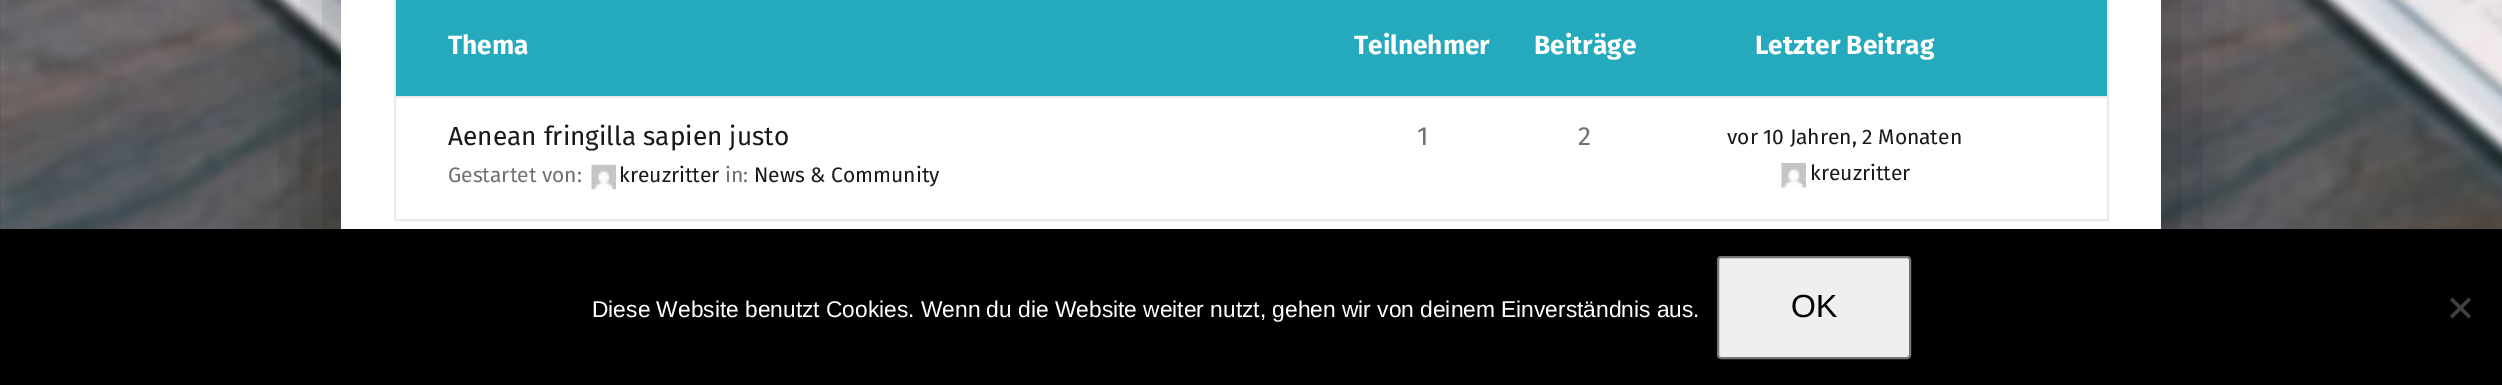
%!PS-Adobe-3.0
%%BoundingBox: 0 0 2502 385
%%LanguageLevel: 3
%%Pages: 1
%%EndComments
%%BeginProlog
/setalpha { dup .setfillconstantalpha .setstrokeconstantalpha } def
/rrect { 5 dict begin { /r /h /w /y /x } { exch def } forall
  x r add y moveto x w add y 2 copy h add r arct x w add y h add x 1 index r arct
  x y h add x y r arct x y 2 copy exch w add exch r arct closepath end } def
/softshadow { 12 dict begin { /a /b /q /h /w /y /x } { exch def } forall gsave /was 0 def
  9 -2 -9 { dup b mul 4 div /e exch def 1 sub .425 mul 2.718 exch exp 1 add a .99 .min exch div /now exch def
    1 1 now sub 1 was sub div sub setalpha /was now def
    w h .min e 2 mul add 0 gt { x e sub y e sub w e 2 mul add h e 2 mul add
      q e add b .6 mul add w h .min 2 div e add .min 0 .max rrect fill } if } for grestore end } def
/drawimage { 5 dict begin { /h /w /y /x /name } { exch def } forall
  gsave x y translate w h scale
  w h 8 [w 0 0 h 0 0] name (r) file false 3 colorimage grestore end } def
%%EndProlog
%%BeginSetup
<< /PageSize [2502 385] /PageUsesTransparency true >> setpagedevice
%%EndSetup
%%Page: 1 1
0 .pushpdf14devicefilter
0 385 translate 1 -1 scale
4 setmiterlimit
1 setgray
0 0 2502 385 rectfill
(images/1.raw) 0 0 2502 229 drawimage
0 setgray
333 -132 1837 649 0 44 0.35 softshadow
1 setgray
341 0 1820 229 rectfill
0.918 setgray
2 setlinewidth
395 -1 1713 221 rectstroke
0.145 0.663 0.741 setrgbcolor
396 0 1711 96 rectfill
0.918 setgray
396 96 1711 2 rectfill
(images/2.raw) 591 164 25 26 drawimage
(images/3.raw) 1781 163 25 25 drawimage
0 setgray
0 229 2502 156 rectfill
0.937 setgray
1718 257 192 101 3 rrect gsave fill grestore
0.463 setgray
stroke
0.251 setgray
newpath 2468.5 297.5 moveto 2471 300 lineto 2452.5 318.5 lineto 2450 316 lineto closepath fill
newpath 2450 300 moveto 2452.5 297.5 lineto 2471 316 lineto 2468.5 318.5 lineto closepath fill
/FiraSans-Bold [26.25 0 0 -26.25 0 0] selectfont
1 setgray
448 54 moveto (Thema) show
1354 54 moveto (Teilnehmer) show
1534 54 moveto (Beiträge) show
1755 54 moveto (Letzter Beitrag) show
/FiraSans-Regular [26.25 0 0 -26.25 0 0] selectfont
0.098 setgray
448 145 moveto (Aenean fringilla sapien justo) show
/FiraSans-Regular [21 0 0 -21 0 0] selectfont
0.439 setgray
448 182 moveto (Gestartet von:) show
0.098 setgray
619 182 moveto (kreuzritter) show
0.439 setgray
725 182 moveto (in:) show
0.098 setgray
754 182 moveto (News & Community) show
/FiraSans-Regular [26.25 0 0 -26.25 0 0] selectfont
0.439 setgray
1417 145 moveto (1) show
1578 145 moveto (2) show
/FiraSans-Regular [21 0 0 -21 0 0] selectfont
0.098 setgray
1727 144 moveto (vor 10 Jahren, 2 Monaten) show
1810 180 moveto (kreuzritter) show
/LiberationSans-Regular [22.75 0 0 -22.75 0 0] selectfont
1 setgray
592 317 moveto (Diese Website benutzt Cookies. Wenn du die Website weiter nutzt, gehen wir von deinem Einverständnis aus.) show
/LiberationSans-Regular [32 0 0 -32 0 0] selectfont
0 setgray
1791 317 moveto (OK) show
.poppdf14devicefilter showpage
%%EOF
